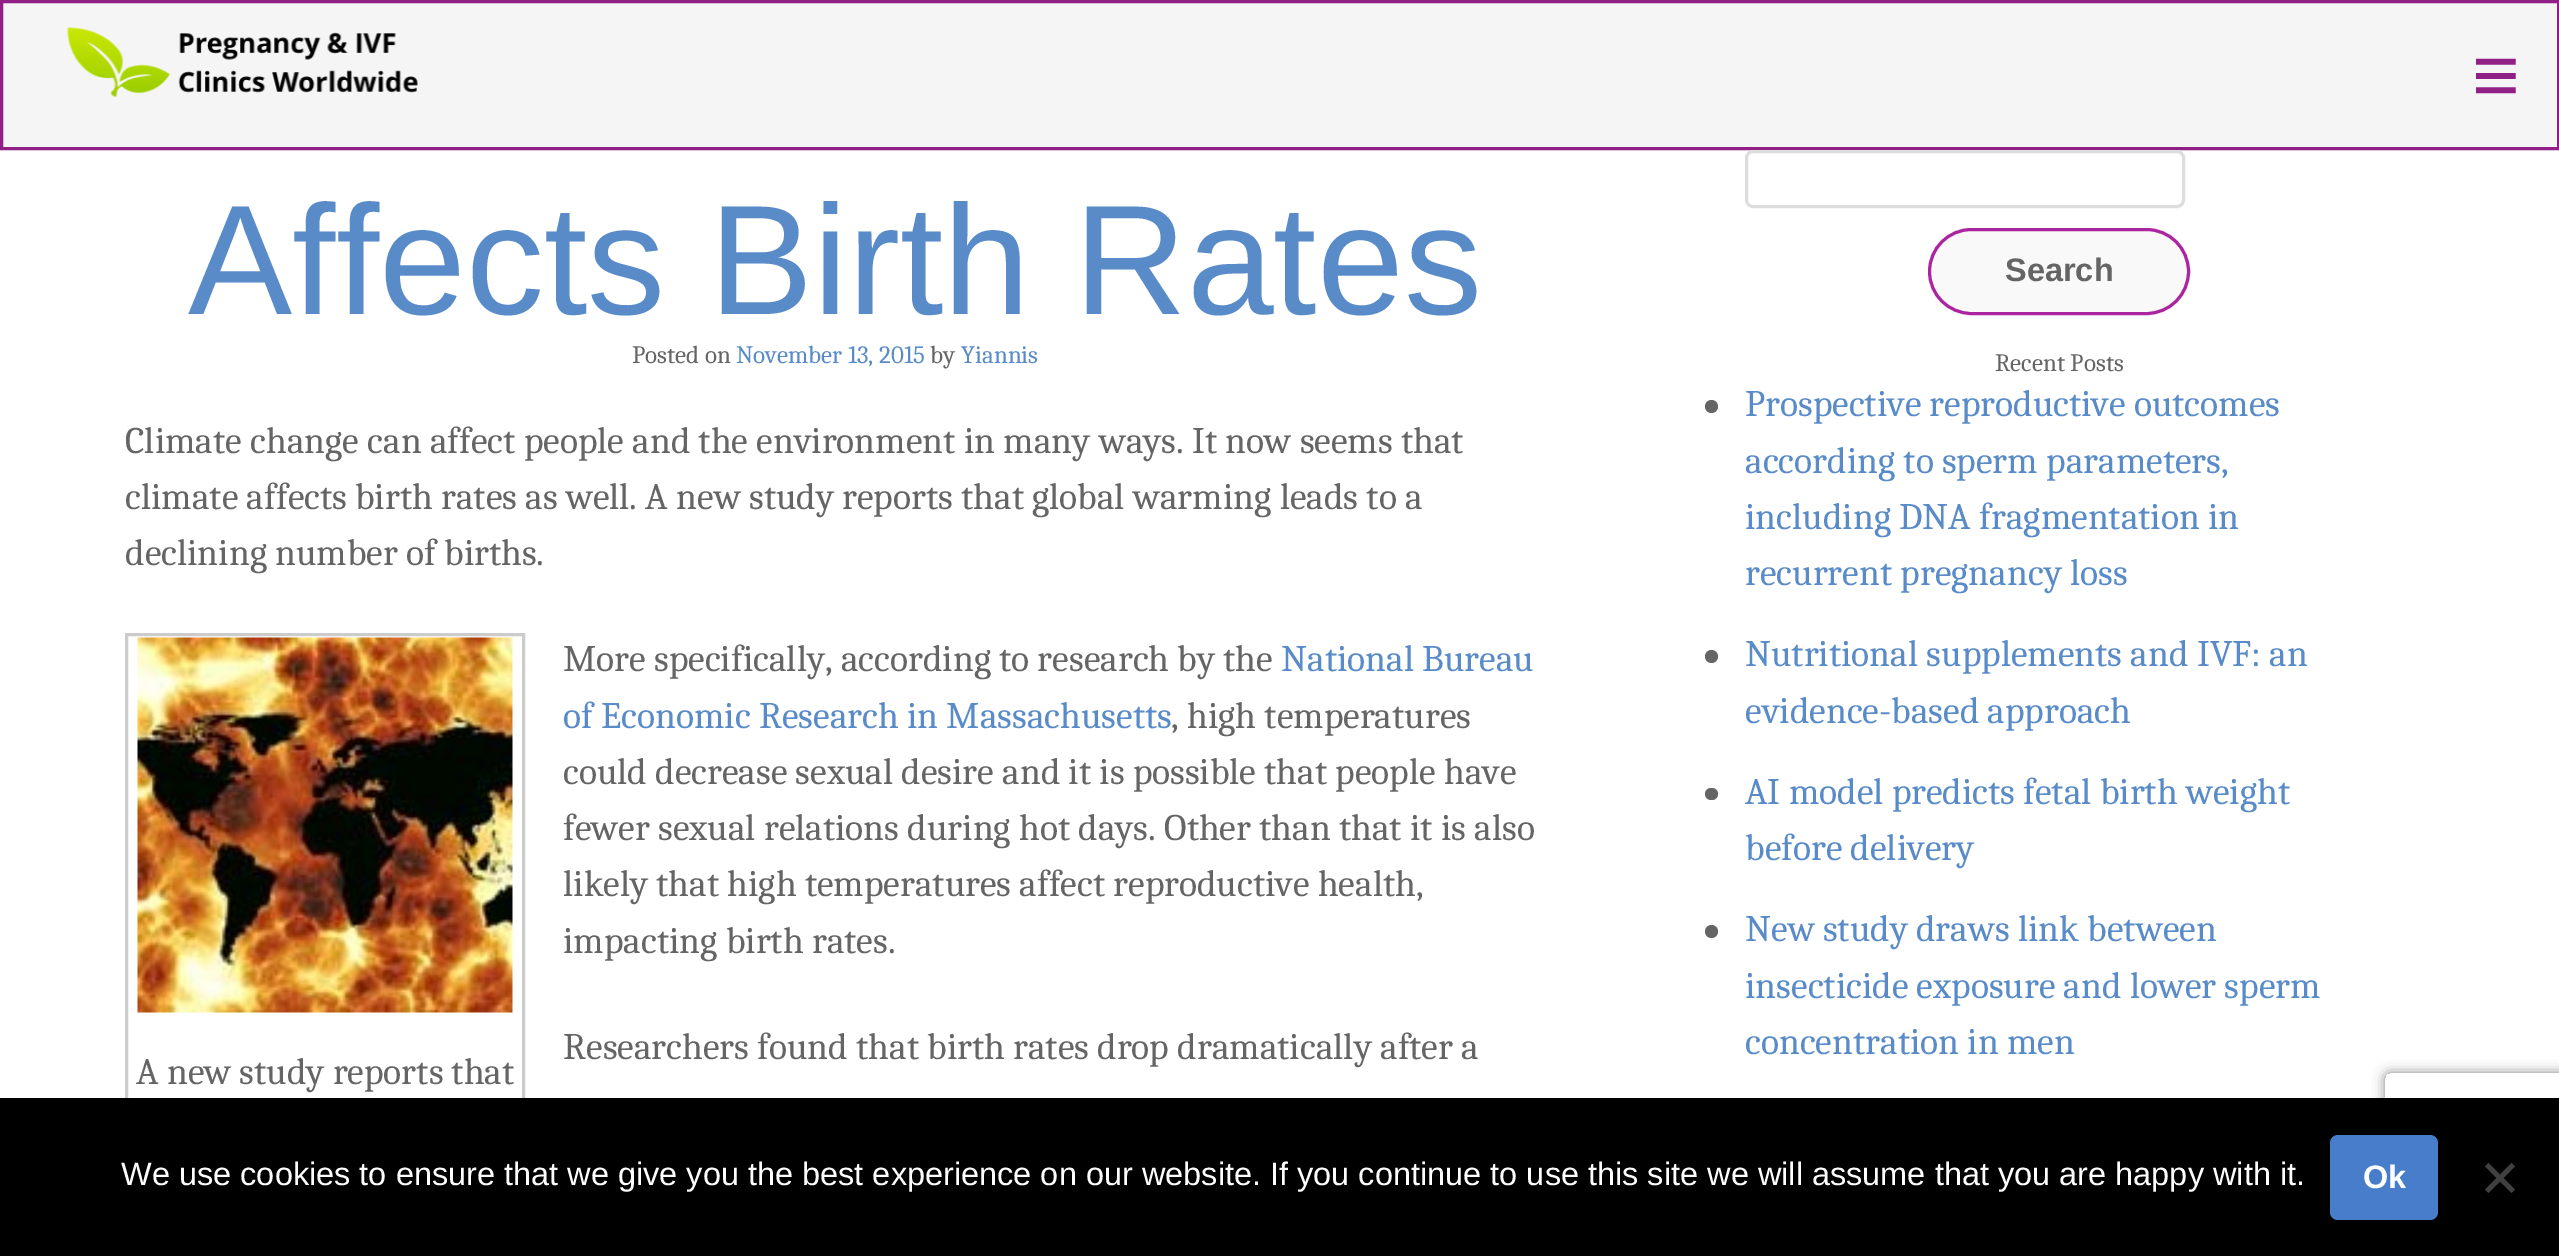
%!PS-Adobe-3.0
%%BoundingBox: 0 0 2559 1256
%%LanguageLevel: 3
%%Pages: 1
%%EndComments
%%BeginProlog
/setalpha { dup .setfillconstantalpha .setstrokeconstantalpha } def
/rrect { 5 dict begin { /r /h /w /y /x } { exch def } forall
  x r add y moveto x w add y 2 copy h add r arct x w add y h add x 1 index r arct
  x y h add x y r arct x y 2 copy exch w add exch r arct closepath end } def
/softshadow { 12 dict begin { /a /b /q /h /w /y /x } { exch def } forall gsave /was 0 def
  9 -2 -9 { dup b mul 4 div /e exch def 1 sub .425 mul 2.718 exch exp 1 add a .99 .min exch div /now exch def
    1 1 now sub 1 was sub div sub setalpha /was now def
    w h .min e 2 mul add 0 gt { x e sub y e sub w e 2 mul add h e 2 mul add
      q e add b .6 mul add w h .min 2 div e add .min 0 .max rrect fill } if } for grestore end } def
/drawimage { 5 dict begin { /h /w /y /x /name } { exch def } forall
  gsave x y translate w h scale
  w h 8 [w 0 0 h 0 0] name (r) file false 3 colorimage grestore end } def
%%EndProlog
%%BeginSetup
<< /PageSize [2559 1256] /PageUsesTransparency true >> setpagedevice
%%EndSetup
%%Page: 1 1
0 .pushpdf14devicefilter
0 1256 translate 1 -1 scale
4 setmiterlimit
1 setgray
0 0 2559 1256 rectfill
0.961 setgray
newpath 1.5 1.5 moveto 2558.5 1.5 lineto 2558.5 148.5 lineto 1.5 148.5 lineto closepath gsave fill grestore
0.565 0.122 0.525 setrgbcolor
3 setlinewidth
stroke
(images/1.raw) 67 27 351 70 drawimage
0.8 setgray
126.5 634.5 397 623 rectstroke
(images/2.raw) 137 637 376 376 drawimage
0.867 setgray
1746.5 151.5 437 55 6.5 rrect stroke
0.976 setgray
1929.5 229.5 259 84 42 rrect gsave fill grestore
0.675 0.145 0.627 setrgbcolor
stroke
0.396 setgray
newpath 1711.5 406.5 6.5 0 360 arc closepath fill
newpath 1711.5 656.5 6.5 0 360 arc closepath fill
1705 788 13 12 6 rrect fill
newpath 1711.5 931.5 6.5 0 360 arc closepath fill
gsave
newpath 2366 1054 moveto 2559 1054 lineto 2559 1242 lineto 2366 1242 lineto closepath 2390 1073 moveto 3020 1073 lineto 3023 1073 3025 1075 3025 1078 curveto 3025 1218 lineto 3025 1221 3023 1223 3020 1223 curveto 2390 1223 lineto 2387 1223 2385 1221 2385 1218 curveto 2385 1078 lineto 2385 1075 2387 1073 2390 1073 curveto closepath eoclip newpath
0.502 setgray
2385 1073 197 150 5 6 1 softshadow
grestore
0 setgray
0 1098 2559 158 rectfill
0.278 0.49 0.792 setrgbcolor
2330 1135 108 85 8 rrect fill
0.251 setgray
newpath 2511.5 1163 moveto 2515 1166.5 lineto 2488.5 1193 lineto 2485 1189.5 lineto closepath fill
newpath 2485 1166.5 moveto 2488.5 1163 lineto 2515 1189.5 lineto 2511.5 1193 lineto closepath fill
/LiberationSans-Bold [82 0 0 -82 0 0] selectfont
0.565 0.122 0.525 setrgbcolor
2472 103 moveto (≡) show
/LiberationSans-Regular [156.25 0 0 -156.25 0 0] selectfont
0.345 0.545 0.784 setrgbcolor
188 314 moveto (Affects Birth Rates) show
/Caladea-Regular [25 0 0 -25 0 0] selectfont
0.396 setgray
632 363 moveto (Posted on) show
0.345 0.545 0.784 setrgbcolor
736 363 moveto (November 13, 2015) show
0.396 setgray
930 363 moveto (by) show
0.345 0.545 0.784 setrgbcolor
961 363 moveto (Yiannis) show
/Caladea-Regular [37.5 0 0 -37.5 0 0] selectfont
0.396 setgray
125 453 moveto (Climate change can affect people and the environment in many ways. It now seems that) show
125 509 moveto (climate affects birth rates as well. A new study reports that global warming leads to a) show
125 565 moveto (declining number of births.) show
563 671 moveto (More specifically, according to research by the) show
0.345 0.545 0.784 setrgbcolor
1281 671 moveto (National Bureau) show
563 728 moveto (of Economic Research in Massachusetts) show
0.396 setgray
1171 728 moveto (, high temperatures) show
563 784 moveto (could decrease sexual desire and it is possible that people have) show
563 840 moveto (fewer sexual relations during hot days. Other than that it is also) show
563 896 moveto (likely that high temperatures affect reproductive health,) show
563 953 moveto (impacting birth rates.) show
563 1059 moveto (Researchers found that birth rates drop dramatically after a) show
136 1084 moveto (A new study reports that) show
/LiberationSans-Bold [32.5 0 0 -32.5 0 0] selectfont
2005 281 moveto (Search) show
/Caladea-Regular [25 0 0 -25 0 0] selectfont
1995 371 moveto (Recent Posts) show
/Caladea-Regular [37.5 0 0 -37.5 0 0] selectfont
0.345 0.545 0.784 setrgbcolor
1745 416 moveto (Prospective reproductive outcomes) show
1745 473 moveto (according to sperm parameters,) show
1745 529 moveto (including DNA fragmentation in) show
1745 585 moveto (recurrent pregnancy loss) show
1745 666 moveto (Nutritional supplements and IVF: an) show
1745 723 moveto (evidence-based approach) show
1745 804 moveto (AI model predicts fetal birth weight) show
1745 860 moveto (before delivery) show
1745 941 moveto (New study draws link between) show
1745 998 moveto (insecticide exposure and lower sperm) show
1745 1054 moveto (concentration in men) show
/LiberationSans-Regular [32.5 0 0 -32.5 0 0] selectfont
1 setgray
121 1185 moveto (We use cookies to ensure that we give you the best experience on our website. If you continue to use this site we will assume that you are happy with it.) show
/LiberationSans-Bold [32.5 0 0 -32.5 0 0] selectfont
2363 1188 moveto (Ok) show
.poppdf14devicefilter showpage
%%EOF
